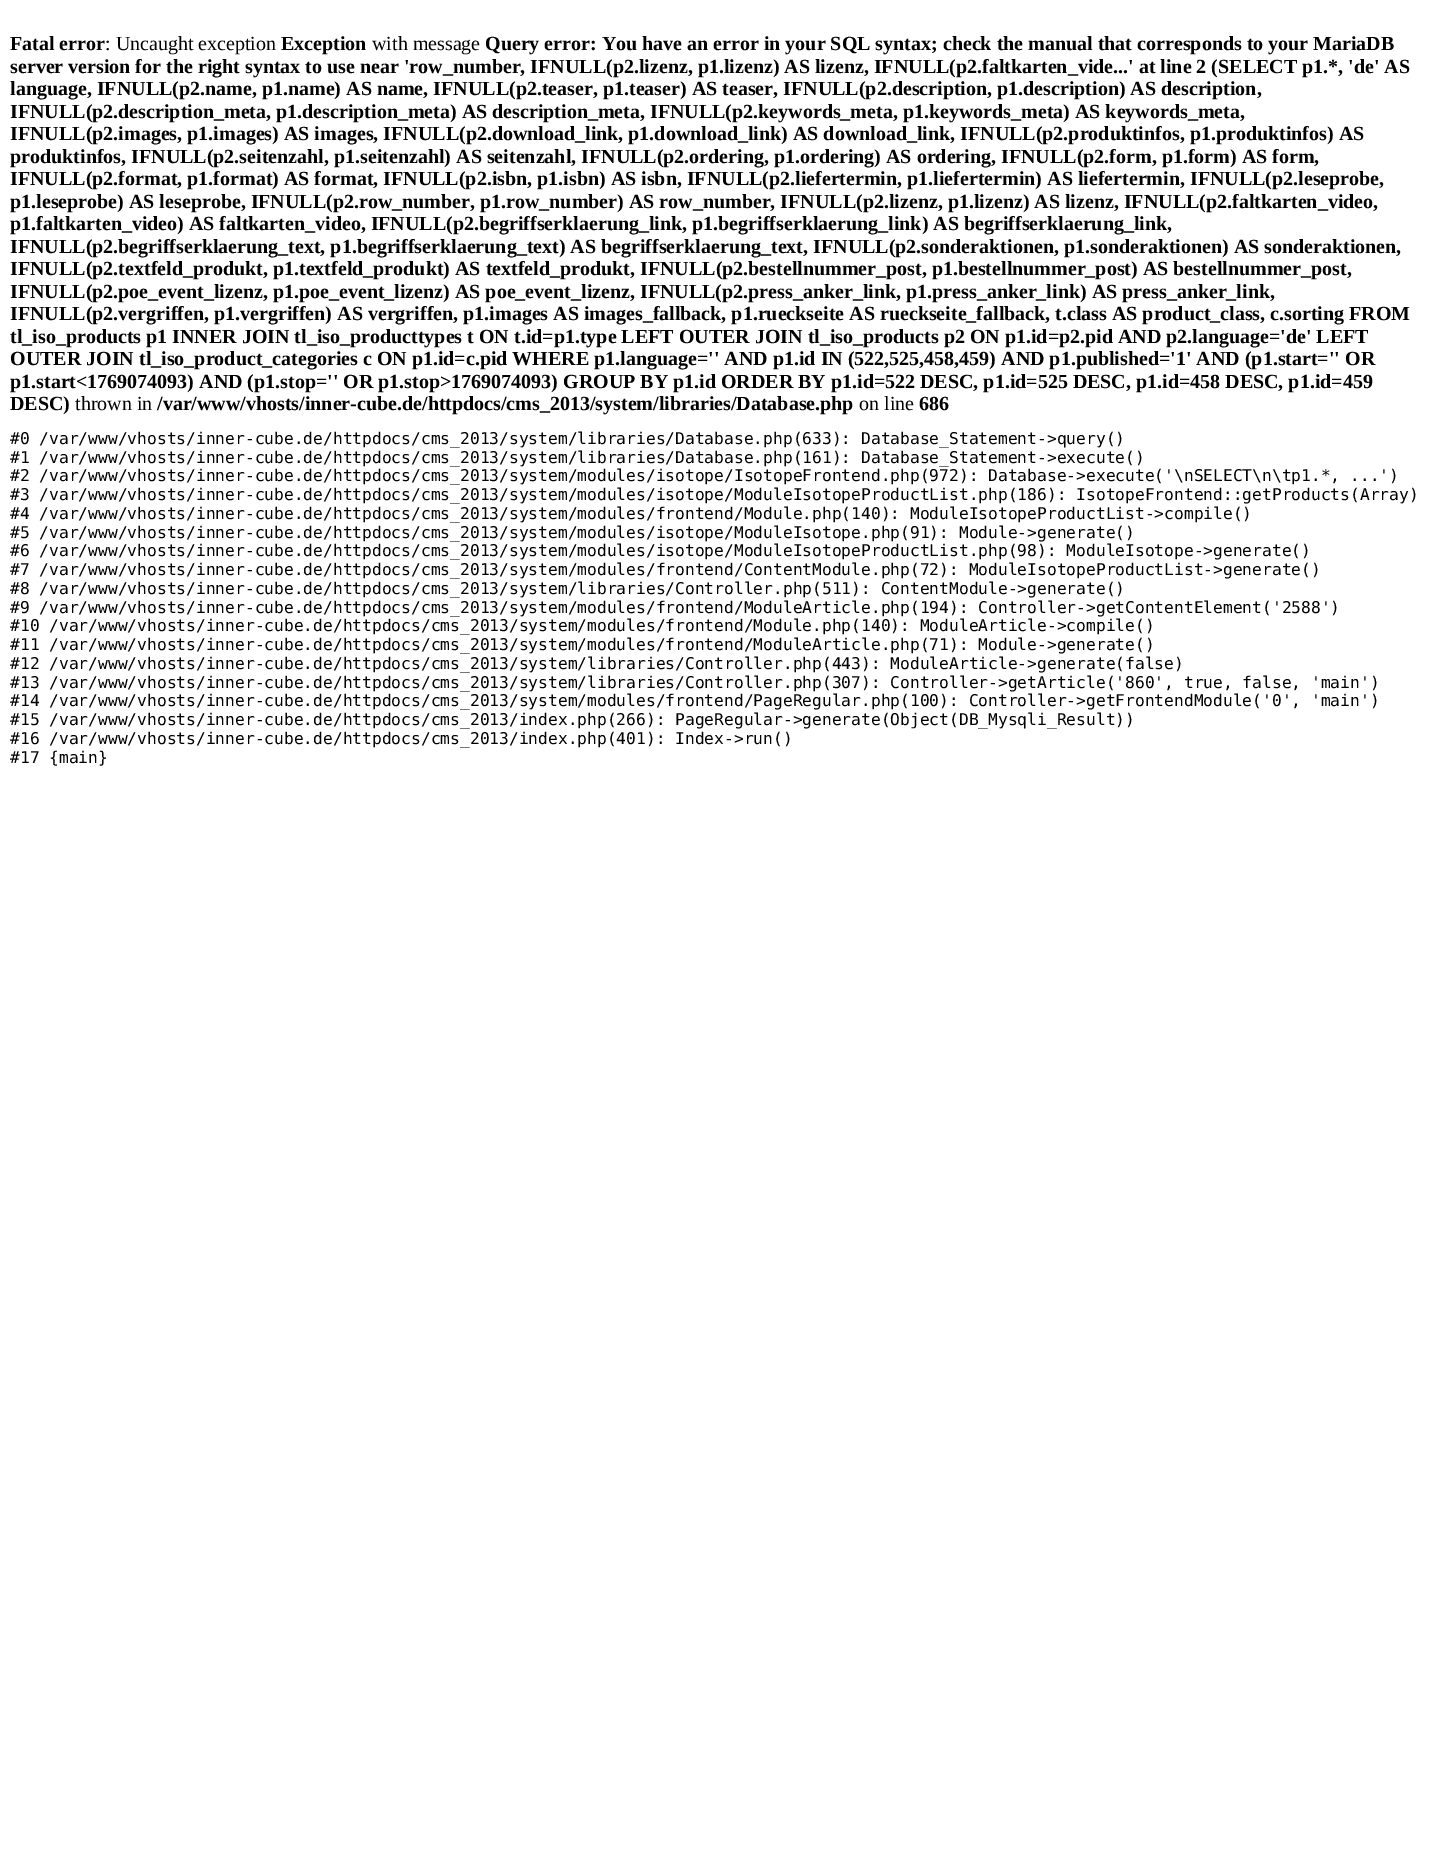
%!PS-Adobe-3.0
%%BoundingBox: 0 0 1430 1860
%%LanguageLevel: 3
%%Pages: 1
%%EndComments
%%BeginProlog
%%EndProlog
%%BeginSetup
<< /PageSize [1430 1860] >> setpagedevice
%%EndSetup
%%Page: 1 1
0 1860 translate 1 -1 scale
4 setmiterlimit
1 setgray
0 0 1430 1860 rectfill
/LiberationSerif-Bold [20 0 0 -20 0 0] selectfont
0 setgray
10 50 moveto (Fatal error) show
/LiberationSerif-Regular [20 0 0 -20 0 0] selectfont
105 50 moveto (: Uncaught exception) show
/LiberationSerif-Bold [20 0 0 -20 0 0] selectfont
281 50 moveto (Exception) show
/LiberationSerif-Regular [20 0 0 -20 0 0] selectfont
372 50 moveto (with message) show
/LiberationSerif-Bold [20 0 0 -20 0 0] selectfont
485 50 moveto (Query error: You have an error in your SQL syntax; check the manual that corresponds to your MariaDB) show
10 73 moveto (server version for the right syntax to use near 'row_number, IFNULL\(p2.lizenz, p1.lizenz\) AS lizenz, IFNULL\(p2.faltkarten_vide...' at line 2 \(SELECT p1.*, 'de' AS) show
10 95 moveto (language, IFNULL\(p2.name, p1.name\) AS name, IFNULL\(p2.teaser, p1.teaser\) AS teaser, IFNULL\(p2.description, p1.description\) AS description,) show
10 118 moveto (IFNULL\(p2.description_meta, p1.description_meta\) AS description_meta, IFNULL\(p2.keywords_meta, p1.keywords_meta\) AS keywords_meta,) show
10 140 moveto (IFNULL\(p2.images, p1.images\) AS images, IFNULL\(p2.download_link, p1.download_link\) AS download_link, IFNULL\(p2.produktinfos, p1.produktinfos\) AS) show
10 163 moveto (produktinfos, IFNULL\(p2.seitenzahl, p1.seitenzahl\) AS seitenzahl, IFNULL\(p2.ordering, p1.ordering\) AS ordering, IFNULL\(p2.form, p1.form\) AS form,) show
10 185 moveto (IFNULL\(p2.format, p1.format\) AS format, IFNULL\(p2.isbn, p1.isbn\) AS isbn, IFNULL\(p2.liefertermin, p1.liefertermin\) AS liefertermin, IFNULL\(p2.leseprobe,) show
10 208 moveto (p1.leseprobe\) AS leseprobe, IFNULL\(p2.row_number, p1.row_number\) AS row_number, IFNULL\(p2.lizenz, p1.lizenz\) AS lizenz, IFNULL\(p2.faltkarten_video,) show
10 230 moveto (p1.faltkarten_video\) AS faltkarten_video, IFNULL\(p2.begriffserklaerung_link, p1.begriffserklaerung_link\) AS begriffserklaerung_link,) show
10 253 moveto (IFNULL\(p2.begriffserklaerung_text, p1.begriffserklaerung_text\) AS begriffserklaerung_text, IFNULL\(p2.sonderaktionen, p1.sonderaktionen\) AS sonderaktionen,) show
10 275 moveto (IFNULL\(p2.textfeld_produkt, p1.textfeld_produkt\) AS textfeld_produkt, IFNULL\(p2.bestellnummer_post, p1.bestellnummer_post\) AS bestellnummer_post,) show
10 298 moveto (IFNULL\(p2.poe_event_lizenz, p1.poe_event_lizenz\) AS poe_event_lizenz, IFNULL\(p2.press_anker_link, p1.press_anker_link\) AS press_anker_link,) show
10 320 moveto (IFNULL\(p2.vergriffen, p1.vergriffen\) AS vergriffen, p1.images AS images_fallback, p1.rueckseite AS rueckseite_fallback, t.class AS product_class, c.sorting FROM) show
10 343 moveto (tl_iso_products p1 INNER JOIN tl_iso_producttypes t ON t.id=p1.type LEFT OUTER JOIN tl_iso_products p2 ON p1.id=p2.pid AND p2.language='de' LEFT) show
10 365 moveto (OUTER JOIN tl_iso_product_categories c ON p1.id=c.pid WHERE p1.language='' AND p1.id IN \(522,525,458,459\) AND p1.published='1' AND \(p1.start='' OR) show
10 388 moveto (p1.start<1769074093\) AND \(p1.stop='' OR p1.stop>1769074093\) GROUP BY p1.id ORDER BY p1.id=522 DESC, p1.id=525 DESC, p1.id=458 DESC, p1.id=459) show
10 410 moveto (DESC\)) show
/LiberationSerif-Regular [20 0 0 -20 0 0] selectfont
75 410 moveto (thrown in) show
/LiberationSerif-Bold [20 0 0 -20 0 0] selectfont
157 410 moveto (/var/www/vhosts/inner-cube.de/httpdocs/cms_2013/system/libraries/Database.php) show
/LiberationSerif-Regular [20 0 0 -20 0 0] selectfont
859 410 moveto (on line) show
/LiberationSerif-Bold [20 0 0 -20 0 0] selectfont
919 410 moveto (686) show
/DejaVuSansMono-Regular [16.25 0 0 -16.25 0 0] selectfont
10 444 moveto (#0 /var/www/vhosts/inner-cube.de/httpdocs/cms_2013/system/libraries/Database.php\(633\): Database_Statement->query\(\)) show
10 463 moveto (#1 /var/www/vhosts/inner-cube.de/httpdocs/cms_2013/system/libraries/Database.php\(161\): Database_Statement->execute\(\)) show
10 481 moveto (#2 /var/www/vhosts/inner-cube.de/httpdocs/cms_2013/system/modules/isotope/IsotopeFrontend.php\(972\): Database->execute\('\\nSELECT\\n\\tp1.*, ...'\)) show
10 500 moveto (#3 /var/www/vhosts/inner-cube.de/httpdocs/cms_2013/system/modules/isotope/ModuleIsotopeProductList.php\(186\): IsotopeFrontend::getProducts\(Array\)) show
10 519 moveto (#4 /var/www/vhosts/inner-cube.de/httpdocs/cms_2013/system/modules/frontend/Module.php\(140\): ModuleIsotopeProductList->compile\(\)) show
10 538 moveto (#5 /var/www/vhosts/inner-cube.de/httpdocs/cms_2013/system/modules/isotope/ModuleIsotope.php\(91\): Module->generate\(\)) show
10 556 moveto (#6 /var/www/vhosts/inner-cube.de/httpdocs/cms_2013/system/modules/isotope/ModuleIsotopeProductList.php\(98\): ModuleIsotope->generate\(\)) show
10 575 moveto (#7 /var/www/vhosts/inner-cube.de/httpdocs/cms_2013/system/modules/frontend/ContentModule.php\(72\): ModuleIsotopeProductList->generate\(\)) show
10 594 moveto (#8 /var/www/vhosts/inner-cube.de/httpdocs/cms_2013/system/libraries/Controller.php\(511\): ContentModule->generate\(\)) show
10 613 moveto (#9 /var/www/vhosts/inner-cube.de/httpdocs/cms_2013/system/modules/frontend/ModuleArticle.php\(194\): Controller->getContentElement\('2588'\)) show
10 631 moveto (#10 /var/www/vhosts/inner-cube.de/httpdocs/cms_2013/system/modules/frontend/Module.php\(140\): ModuleArticle->compile\(\)) show
10 650 moveto (#11 /var/www/vhosts/inner-cube.de/httpdocs/cms_2013/system/modules/frontend/ModuleArticle.php\(71\): Module->generate\(\)) show
10 669 moveto (#12 /var/www/vhosts/inner-cube.de/httpdocs/cms_2013/system/libraries/Controller.php\(443\): ModuleArticle->generate\(false\)) show
10 688 moveto (#13 /var/www/vhosts/inner-cube.de/httpdocs/cms_2013/system/libraries/Controller.php\(307\): Controller->getArticle\('860', true, false, 'main'\)) show
10 706 moveto (#14 /var/www/vhosts/inner-cube.de/httpdocs/cms_2013/system/modules/frontend/PageRegular.php\(100\): Controller->getFrontendModule\('0', 'main'\)) show
10 725 moveto (#15 /var/www/vhosts/inner-cube.de/httpdocs/cms_2013/index.php\(266\): PageRegular->generate\(Object\(DB_Mysqli_Result\)\)) show
10 744 moveto (#16 /var/www/vhosts/inner-cube.de/httpdocs/cms_2013/index.php\(401\): Index->run\(\)) show
10 763 moveto (#17 {main}) show
showpage
%%EOF
